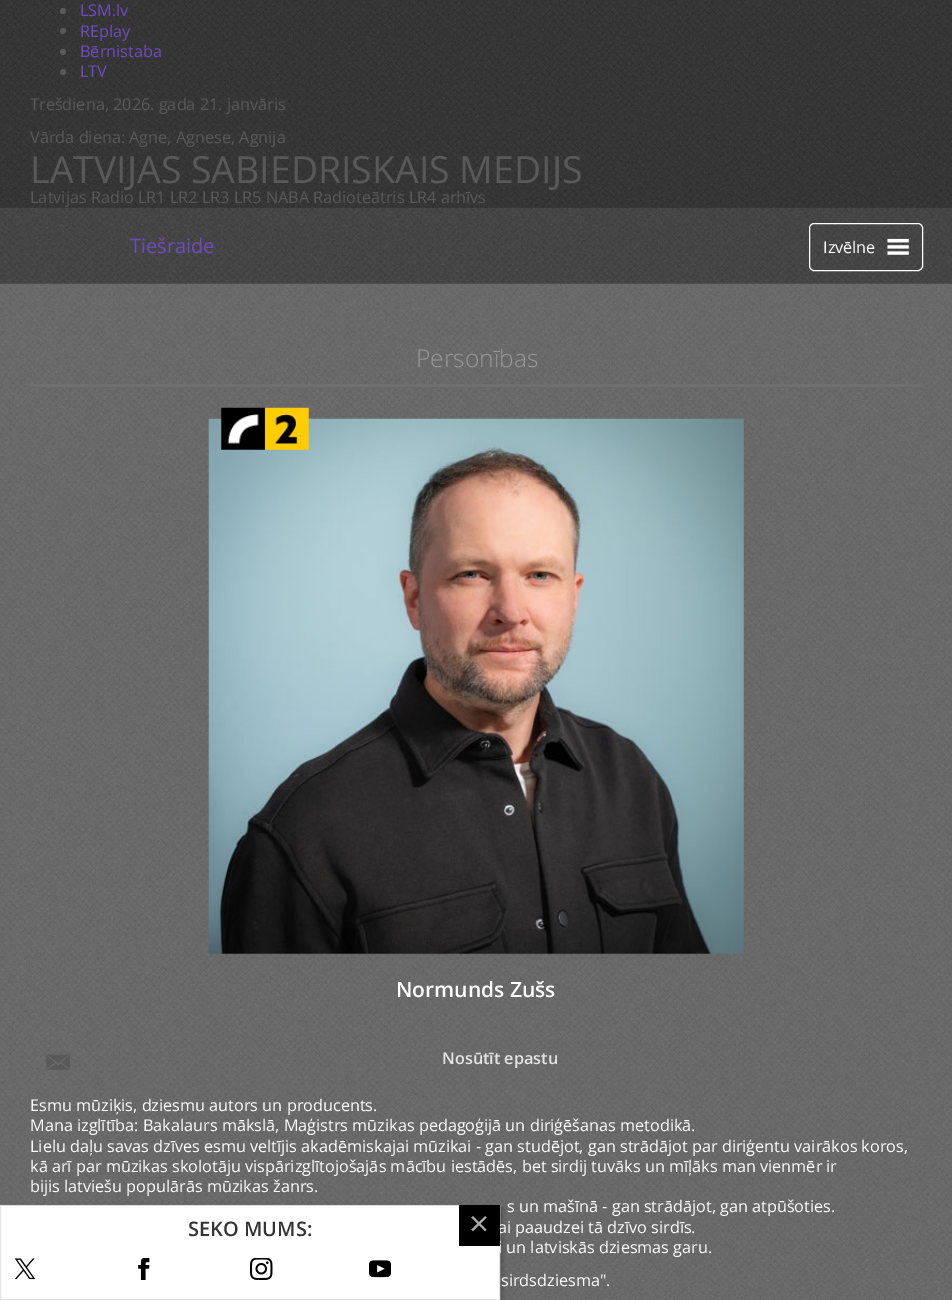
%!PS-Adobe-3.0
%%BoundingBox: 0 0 952 1300
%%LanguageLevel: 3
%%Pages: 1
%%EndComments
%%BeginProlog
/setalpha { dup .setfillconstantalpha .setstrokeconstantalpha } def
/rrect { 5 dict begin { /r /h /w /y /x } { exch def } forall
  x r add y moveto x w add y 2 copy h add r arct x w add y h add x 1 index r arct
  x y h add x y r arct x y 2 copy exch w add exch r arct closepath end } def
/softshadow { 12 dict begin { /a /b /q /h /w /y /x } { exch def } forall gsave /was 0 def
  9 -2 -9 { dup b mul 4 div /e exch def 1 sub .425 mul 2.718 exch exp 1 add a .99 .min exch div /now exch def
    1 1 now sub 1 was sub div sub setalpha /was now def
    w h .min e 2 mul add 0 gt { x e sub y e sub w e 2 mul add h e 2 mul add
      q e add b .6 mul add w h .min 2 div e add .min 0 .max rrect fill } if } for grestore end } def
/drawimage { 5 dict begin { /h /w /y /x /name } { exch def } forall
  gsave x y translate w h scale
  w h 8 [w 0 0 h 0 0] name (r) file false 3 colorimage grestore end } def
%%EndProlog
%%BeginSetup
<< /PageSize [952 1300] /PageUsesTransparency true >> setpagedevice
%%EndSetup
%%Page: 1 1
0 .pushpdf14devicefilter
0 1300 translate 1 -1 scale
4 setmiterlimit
1 setgray
0 0 952 1300 rectfill
(images/1.raw) 0 0 952 208 drawimage
0.349 setgray
newpath 63 11 3 0 360 arc closepath fill
newpath 63 31 3 0 360 arc closepath fill
newpath 63 52 3 0 360 arc closepath fill
newpath 63 72 3 0 360 arc closepath fill
(images/2.raw) 0 207 952 77 drawimage
1 setgray
809.5 223.5 113 47 4.5 rrect stroke
(images/3.raw) 887 238 22 17 drawimage
(images/4.raw) 0 283 952 1017 drawimage
0.435 setgray
30 384 893 3 rectfill
(images/6.raw) 208 418 536 536 drawimage
(images/5.raw) 221 407 88 43 drawimage
(images/7.raw) 46 1054 24 16 drawimage
0 setgray
3 1208 500 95 0 2 0.2 softshadow
1 setgray
newpath 0.5 1205.5 moveto 499.5 1205.5 lineto 499.5 1299.5 lineto 0.5 1299.5 lineto closepath gsave fill grestore
0.886 setgray
stroke
(images/8.raw) 14 1258 22 22 drawimage
(images/9.raw) 138 1258 12 22 drawimage
(images/10.raw) 250 1258 23 22 drawimage
(images/11.raw) 369 1260 22 18 drawimage
/OpenSans-Regular [16.25 0 0 -16.25 0 0] selectfont
0.439 0.294 0.745 setrgbcolor
80 16 moveto (LSM.lv) show
80 37 moveto (REplay) show
80 57 moveto (Bērnistaba) show
80 77 moveto (LTV) show
0.349 setgray
30 110 moveto (Trešdiena, 2026. gada 21. janvāris) show
30 143 moveto (Vārda diena: Agne, Agnese, Agnija) show
/OpenSans-Regular [37.5 0 0 -37.5 0 0] selectfont
30 183 moveto (LATVIJAS SABIEDRISKAIS MEDIJS) show
/OpenSans-Regular [16.25 0 0 -16.25 0 0] selectfont
30 203 moveto (Latvijas Radio LR1 LR2 LR3 LR5 NABA Radioteātris LR4 arhīvs) show
/OpenSans-Regular [20 0 0 -20 0 0] selectfont
0.439 0.294 0.745 setrgbcolor
130 253 moveto (Tiešraide) show
/OpenSans-Regular [16.25 0 0 -16.25 0 0] selectfont
1 setgray
823 253 moveto (Izvēlne) show
/OpenSans-Light [24.5 0 0 -24.5 0 0] selectfont
0.6 setgray
416 367 moveto (Personības) show
/OpenSans-SemiBold [21 0 0 -21 0 0] selectfont
1 setgray
396 997 moveto (Normunds Zušs) show
/OpenSans-SemiBold [16.25 0 0 -16.25 0 0] selectfont
0.89 setgray
442 1064 moveto (Nosūtīt epastu) show
/OpenSans-Regular [16.25 0 0 -16.25 0 0] selectfont
1 setgray
30 1111 moveto (Esmu mūziķis, dziesmu autors un producents.) show
30 1131 moveto (Mana izglītība: Bakalaurs mākslā, Maģistrs mūzikas pedagoģijā un diriģēšanas metodikā.) show
30 1152 moveto (Lielu daļu savas dzīves esmu veltījis akadēmiskajai mūzikai - gan studējot, gan strādājot par diriģentu vairākos koros,) show
30 1172 moveto (kā arī par mūzikas skolotāju vispārizglītojošajās mācību iestādēs, bet sirdij tuvāks un mīļāks man vienmēr ir) show
30 1192 moveto (bijis latviešu populārās mūzikas žanrs.) show
507 1212 moveto (s un mašīnā - gan strādājot, gan atpūšoties.) show
498 1233 moveto (ai paaudzei tā dzīvo sirdīs.) show
498 1253 moveto (i un latviskās dziesmas garu.) show
501 1286 moveto (sirdsdziesma".) show
/OpenSans-SemiBold [20 0 0 -20 0 0] selectfont
0.2 setgray
188 1236 moveto (SEKO MUMS:) show
0 setgray
459 1205 41 41 rectfill
/OpenSans-Regular [35 0 0 -35 0 0] selectfont
0.667 setgray
469 1236 moveto (×) show
.poppdf14devicefilter showpage
%%EOF
